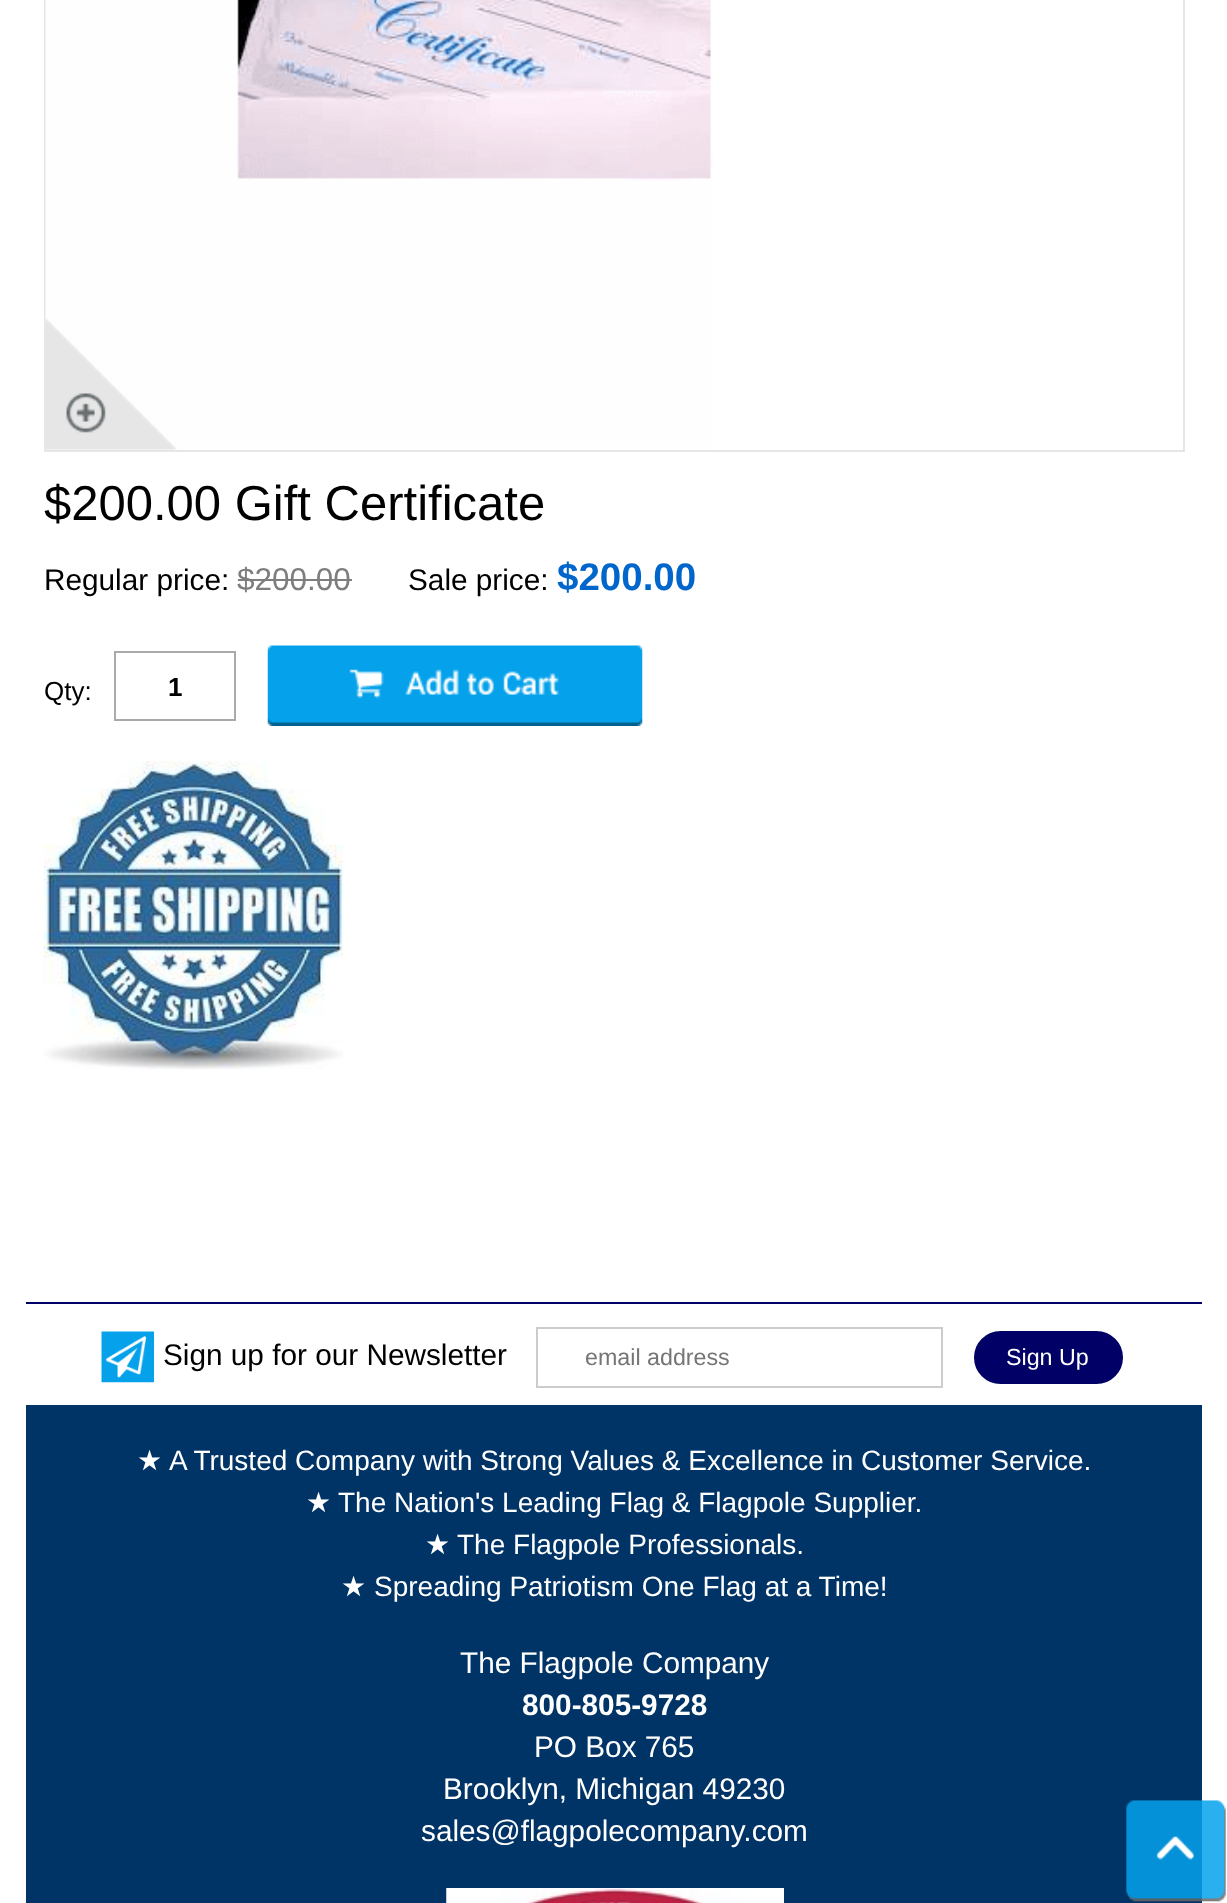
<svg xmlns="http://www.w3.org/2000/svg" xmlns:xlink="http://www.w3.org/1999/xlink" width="1227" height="1903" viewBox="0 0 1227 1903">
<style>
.cls-1{font:49px Liberation Sans;fill:#000000}
.cls-2{font:29.75px Liberation Sans;fill:#000000}
.cls-3{font:31.5px Liberation Sans;fill:#7e7e7e}
.cls-4{font:bold 38.5px Liberation Sans;fill:#0066cc}
.cls-5{font:26px Liberation Sans;fill:#000000}
.cls-6{font:bold 26px Liberation Sans;fill:#000000}
.cls-7{font:23.25px Liberation Sans;fill:#757575}
.cls-8{font:23.25px Liberation Sans;fill:#ffffff}
.cls-9{font:28px DejaVu Sans;fill:#ffffff}
.cls-10{font:28px Liberation Sans;fill:#ffffff}
.cls-11{font:29.75px Liberation Sans;fill:#ffffff}
.cls-12{font:bold 29.75px Liberation Sans;fill:#ffffff}
</style>
<rect width="100%" height="100%" fill="#ffffff"/>
<rect fill="none" stroke="#e6e6e6" stroke-width="2" x="45" y="-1" width="1139" height="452"/>
<image xlink:href="image0.png" x="45" y="0" width="668" height="450"/>
<image xlink:href="image1.png" x="45" y="318" width="132" height="132"/>
<rect fill="#7e7e7e" x="238" y="579" width="114" height="2"/>
<rect fill="none" stroke="#aaaaaa" stroke-width="2" x="115" y="652" width="120" height="68"/>
<image xlink:href="image2.png" x="267" y="645" width="376" height="81"/>
<image xlink:href="image3.png" x="43" y="761" width="300" height="309"/>
<rect fill="#003366" x="26" y="1405" width="1176" height="498"/>
<rect fill="#000066" x="26" y="1302" width="1176" height="2"/>
<image xlink:href="image4.png" x="101" y="1331" width="53" height="52"/>
<rect fill="none" stroke="#cccccc" stroke-width="2" x="537" y="1328" width="405" height="59"/>
<rect fill="#000066" stroke="#ffffff" stroke-width="4" x="972" y="1329" width="153" height="57" rx="28.5"/>
<image xlink:href="image5.png" x="446" y="1888" width="338" height="15"/>
<image xlink:href="image6.png" x="1126" y="1800" width="100" height="102"/>
<text class="cls-1" x="44" y="520">$200.00 Gift Certificate</text>
<text class="cls-2" x="44" y="590">Regular price:</text>
<text class="cls-3" x="237" y="590">$200.00</text>
<text class="cls-2" x="408" y="590">Sale price:</text>
<text class="cls-4" x="557" y="590">$200.00</text>
<text class="cls-5" x="44" y="700">Qty:</text>
<text class="cls-6" x="168" y="696">1</text>
<text class="cls-2" x="163" y="1365">Sign up for our Newsletter</text>
<text class="cls-7" x="585" y="1365">email address</text>
<text class="cls-8" x="1006" y="1365">Sign Up</text>
<text class="cls-9" x="137" y="1470">★</text>
<text class="cls-10" x="169" y="1470">A Trusted Company with Strong Values &amp; Excellence in Customer Service.</text>
<text class="cls-9" x="306" y="1512">★</text>
<text class="cls-10" x="338" y="1512">The Nation's Leading Flag &amp; Flagpole Supplier.</text>
<text class="cls-9" x="425" y="1554">★</text>
<text class="cls-10" x="457" y="1554">The Flagpole Professionals.</text>
<text class="cls-9" x="341" y="1596">★</text>
<text class="cls-10" x="374" y="1596">Spreading Patriotism One Flag at a Time!</text>
<text class="cls-11" x="460" y="1673">The Flagpole Company</text>
<text class="cls-12" x="522" y="1715">800-805-9728</text>
<text class="cls-11" x="534" y="1757">PO Box 765</text>
<text class="cls-11" x="443" y="1799">Brooklyn, Michigan 49230</text>
<text class="cls-11" x="421" y="1841">sales@flagpolecompany.com</text>
</svg>
